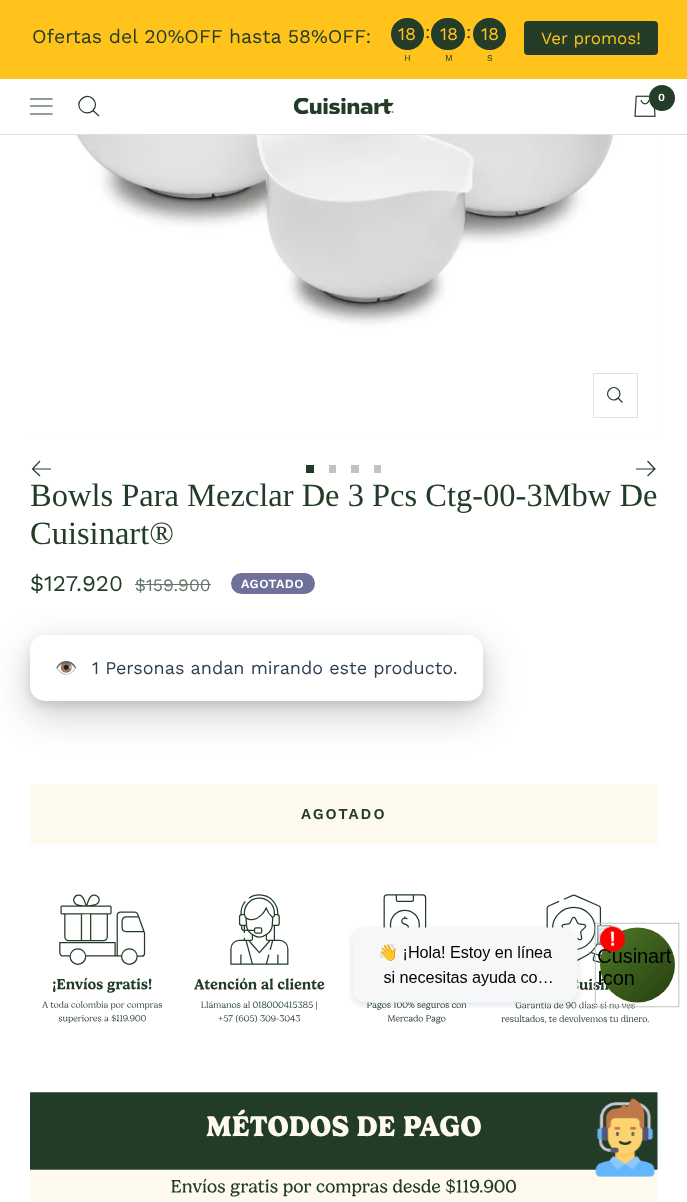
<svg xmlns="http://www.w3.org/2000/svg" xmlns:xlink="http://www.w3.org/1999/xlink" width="687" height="1202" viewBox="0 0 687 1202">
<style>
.cls-1{font:19.5px Work Sans;fill:#233c28}
.cls-2{font:18px Work Sans;fill:#ffc31b}
.cls-3{font:19.5px Liberation Serif;fill:#233c28}
.cls-4{font:9px Work Sans;fill:#233c28}
.cls-5{font:17px Work Sans;fill:#ffc31b}
.cls-6{font:600 11px Work Sans;fill:#ffffff}
.cls-7{font:32.5px Liberation Serif;fill:#233c28}
.cls-8{font:22.5px Work Sans;fill:#233c28}
.cls-9{font:17.5px Work Sans;fill:#657769}
.cls-10{font:600 12.5px Work Sans;letter-spacing:0.5px;fill:#ffffff}
.cls-11{font:18px Noto Color Emoji;fill:#2c3e50}
.cls-12{font:18px Work Sans;fill:#2c3e50}
.cls-13{font:600 15px Work Sans;letter-spacing:2px;fill:#233c28}
</style>
<rect width="100%" height="100%" fill="#ffffff"/>
<path fill="#dee2df" d="M0 134V135H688V1V134Z"/>
<rect fill="#ffc31b" x="0" y="0" width="687" height="79"/>
<rect fill="#243c28" x="391" y="18" width="33" height="32" rx="16"/>
<rect fill="#243c28" x="431" y="18" width="34" height="32" rx="16"/>
<rect fill="#243c28" x="473" y="18" width="33" height="32" rx="16"/>
<rect fill="#243c28" x="524" y="21" width="134" height="34" rx="4"/>
<path fill="none" stroke="#243c28" stroke-width="1.2" d="M30 99H52.5M30 114H52.5ZM30 106H52.5Z"/>
<path fill="none" stroke="#243c28" stroke-width="1.2" d="M93 110.5C100.5 102.5 89 91 81.5 99C73.5 106.5 85 118 93 110.5ZM93 110.5L99 116"/>
<image xlink:href="image0.png" x="294" y="98" width="100" height="16"/>
<image xlink:href="image1.png" x="634" y="95" width="22" height="22"/>
<circle fill="#243c28" cx="662" cy="98" r="13"/>
<rect fill="#fffaee" x="30" y="135" width="628" height="303"/>
<image xlink:href="image2.png" x="30" y="135" width="628" height="302"/>
<rect fill="none" stroke="#dee2df" x="593.5" y="373.5" width="44" height="44"/>
<path fill="none" stroke="#233c28" stroke-width="1.2" d="M618 398C624 392.5 615 383.5 609.5 389.5C603.5 395 612.5 404 618 398ZM618 398L622.5 402.5"/>
<path fill="none" stroke="#233c28" stroke-width="1.2" d="M51 469H32.5M40 461L32.5 469L40 476"/>
<rect fill="#233c28" x="306" y="465" width="8" height="8"/>
<rect fill="#bdc5bf" x="329" y="465" width="7" height="8"/>
<rect fill="#bdc5bf" x="351" y="465" width="8" height="8"/>
<rect fill="#bdc5bf" x="374" y="465" width="7" height="8"/>
<path fill="none" stroke="#233c28" stroke-width="1.2" d="M636 469H655M647.5 461L655 469L647.5 476"/>
<rect fill="#657769" x="135" y="584" width="76" height="1"/>
<rect fill="#6f719b" x="231" y="573" width="84" height="21" rx="10.5"/>
<rect fill="#000000" fill-opacity="0.1" filter="blur(5px)" x="30" y="640" width="453" height="66" rx="15"/>
<rect fill="#000000" fill-opacity="0.2" filter="blur(19px)" x="30" y="648" width="453" height="66" rx="15"/>
<rect fill="#ffffff" x="30" y="635" width="453" height="66" rx="15"/>
<rect fill="#fffaee" x="30" y="784" width="628" height="60"/>
<image xlink:href="image3.png" x="42" y="894" width="607" height="130"/>
<image xlink:href="image4.png" x="30" y="1092" width="628" height="110"/>
<image xlink:href="image5.png" x="349" y="922" width="331" height="86"/>
<image xlink:href="image6.png" x="595" y="1098" width="61" height="79"/>
<text class="cls-1" x="32" y="43">Ofertas del 20%OFF hasta 58%OFF:</text>
<text class="cls-2" x="398" y="40">18</text>
<text class="cls-3" x="425" y="38">:</text>
<text class="cls-2" x="440" y="40">18</text>
<text class="cls-3" x="466" y="38">:</text>
<text class="cls-2" x="481" y="40">18</text>
<text class="cls-4" x="404" y="61">H</text>
<text class="cls-4" x="445" y="61">M</text>
<text class="cls-4" x="487" y="61">S</text>
<text class="cls-5" x="541" y="44">Ver promos!</text>
<text class="cls-6" x="658" y="101">0</text>
<text class="cls-7"><tspan x="30" y="506">Bowls Para Mezclar De 3 Pcs Ctg-00-3Mbw De</tspan><tspan x="30" y="544">Cuisinart®</tspan></text>
<text class="cls-8" x="30" y="591">$127.920</text>
<text class="cls-9" x="135" y="591">$159.900</text>
<text class="cls-10" x="241" y="588">AGOTADO</text>
<text class="cls-11" x="55" y="674">👁️</text>
<text class="cls-12" x="92" y="674">1 Personas andan mirando este producto.</text>
<text class="cls-13" x="301" y="819">AGOTADO</text>
</svg>
